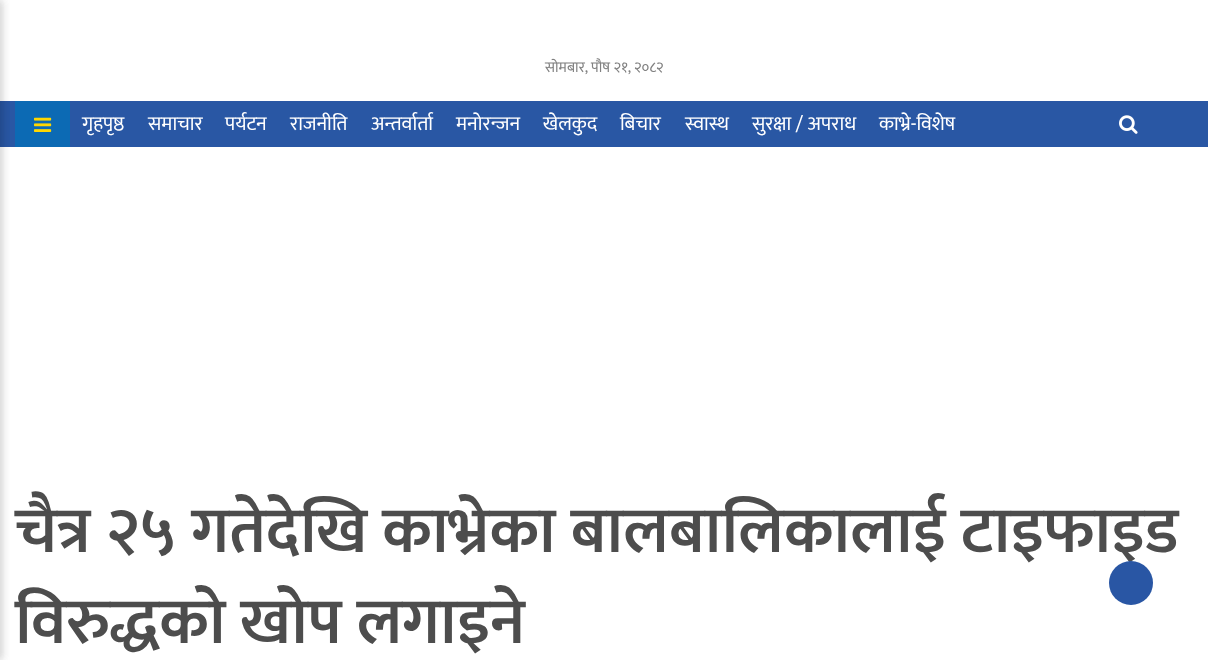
<svg xmlns="http://www.w3.org/2000/svg" xmlns:xlink="http://www.w3.org/1999/xlink" width="1208" height="660" viewBox="0 0 1208 660">
<style>
.cls-1{font:15px Ek Mukta;fill:#808080}
.cls-2{font:20px Ek Mukta;fill:#ffffff}
.cls-3{font:600 65px Ek Mukta;fill:#4d4d4d}
</style>
<rect width="100%" height="100%" fill="#ffffff"/>
<rect fill="#2957a4" x="0" y="101" width="1208" height="46"/>
<rect fill="#000000" fill-opacity="0.1" filter="blur(4px)" x="-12" y="0" width="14" height="660"/>
<rect fill="#000000" fill-opacity="0.1" filter="blur(4px)" x="-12" y="0" width="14" height="660"/>
<rect fill="#0c6ab4" x="15" y="101" width="55" height="46"/>
<image xlink:href="image0.png" x="34" y="117" width="18" height="15"/>
<image xlink:href="image1.png" x="1119" y="115" width="19" height="19"/>
<text class="cls-1" x="545" y="72">सोमबार,</text>
<text class="cls-1" x="591" y="72">पौष २१,</text>
<text class="cls-1" x="634" y="72">२०८२</text>
<text class="cls-2" x="82" y="130">गृहपृष्ठ</text>
<text class="cls-2" x="148" y="130">समाचार</text>
<text class="cls-2" x="225" y="130">पर्यटन</text>
<text class="cls-2" x="290" y="130">राजनीति</text>
<text class="cls-2" x="371" y="130">अन्तर्वार्ता</text>
<text class="cls-2" x="456" y="130">मनोरन्जन</text>
<text class="cls-2" x="543" y="130">खेलकुद</text>
<text class="cls-2" x="620" y="130">बिचार</text>
<text class="cls-2" x="685" y="130">स्वास्थ</text>
<text class="cls-2" x="752" y="130">सुरक्षा / अपराध</text>
<text class="cls-2" x="879" y="130">काभ्रे-विशेष</text>
<text class="cls-3"><tspan x="15" y="552">चैत्र २५ गतेदेखि काभ्रेका बालबालिकालाई टाइफाइड</tspan><tspan x="15" y="643">विरुद्धको खोप लगाइने</tspan></text>
<circle fill="#2956a4" cx="1131" cy="583" r="22"/>
</svg>
